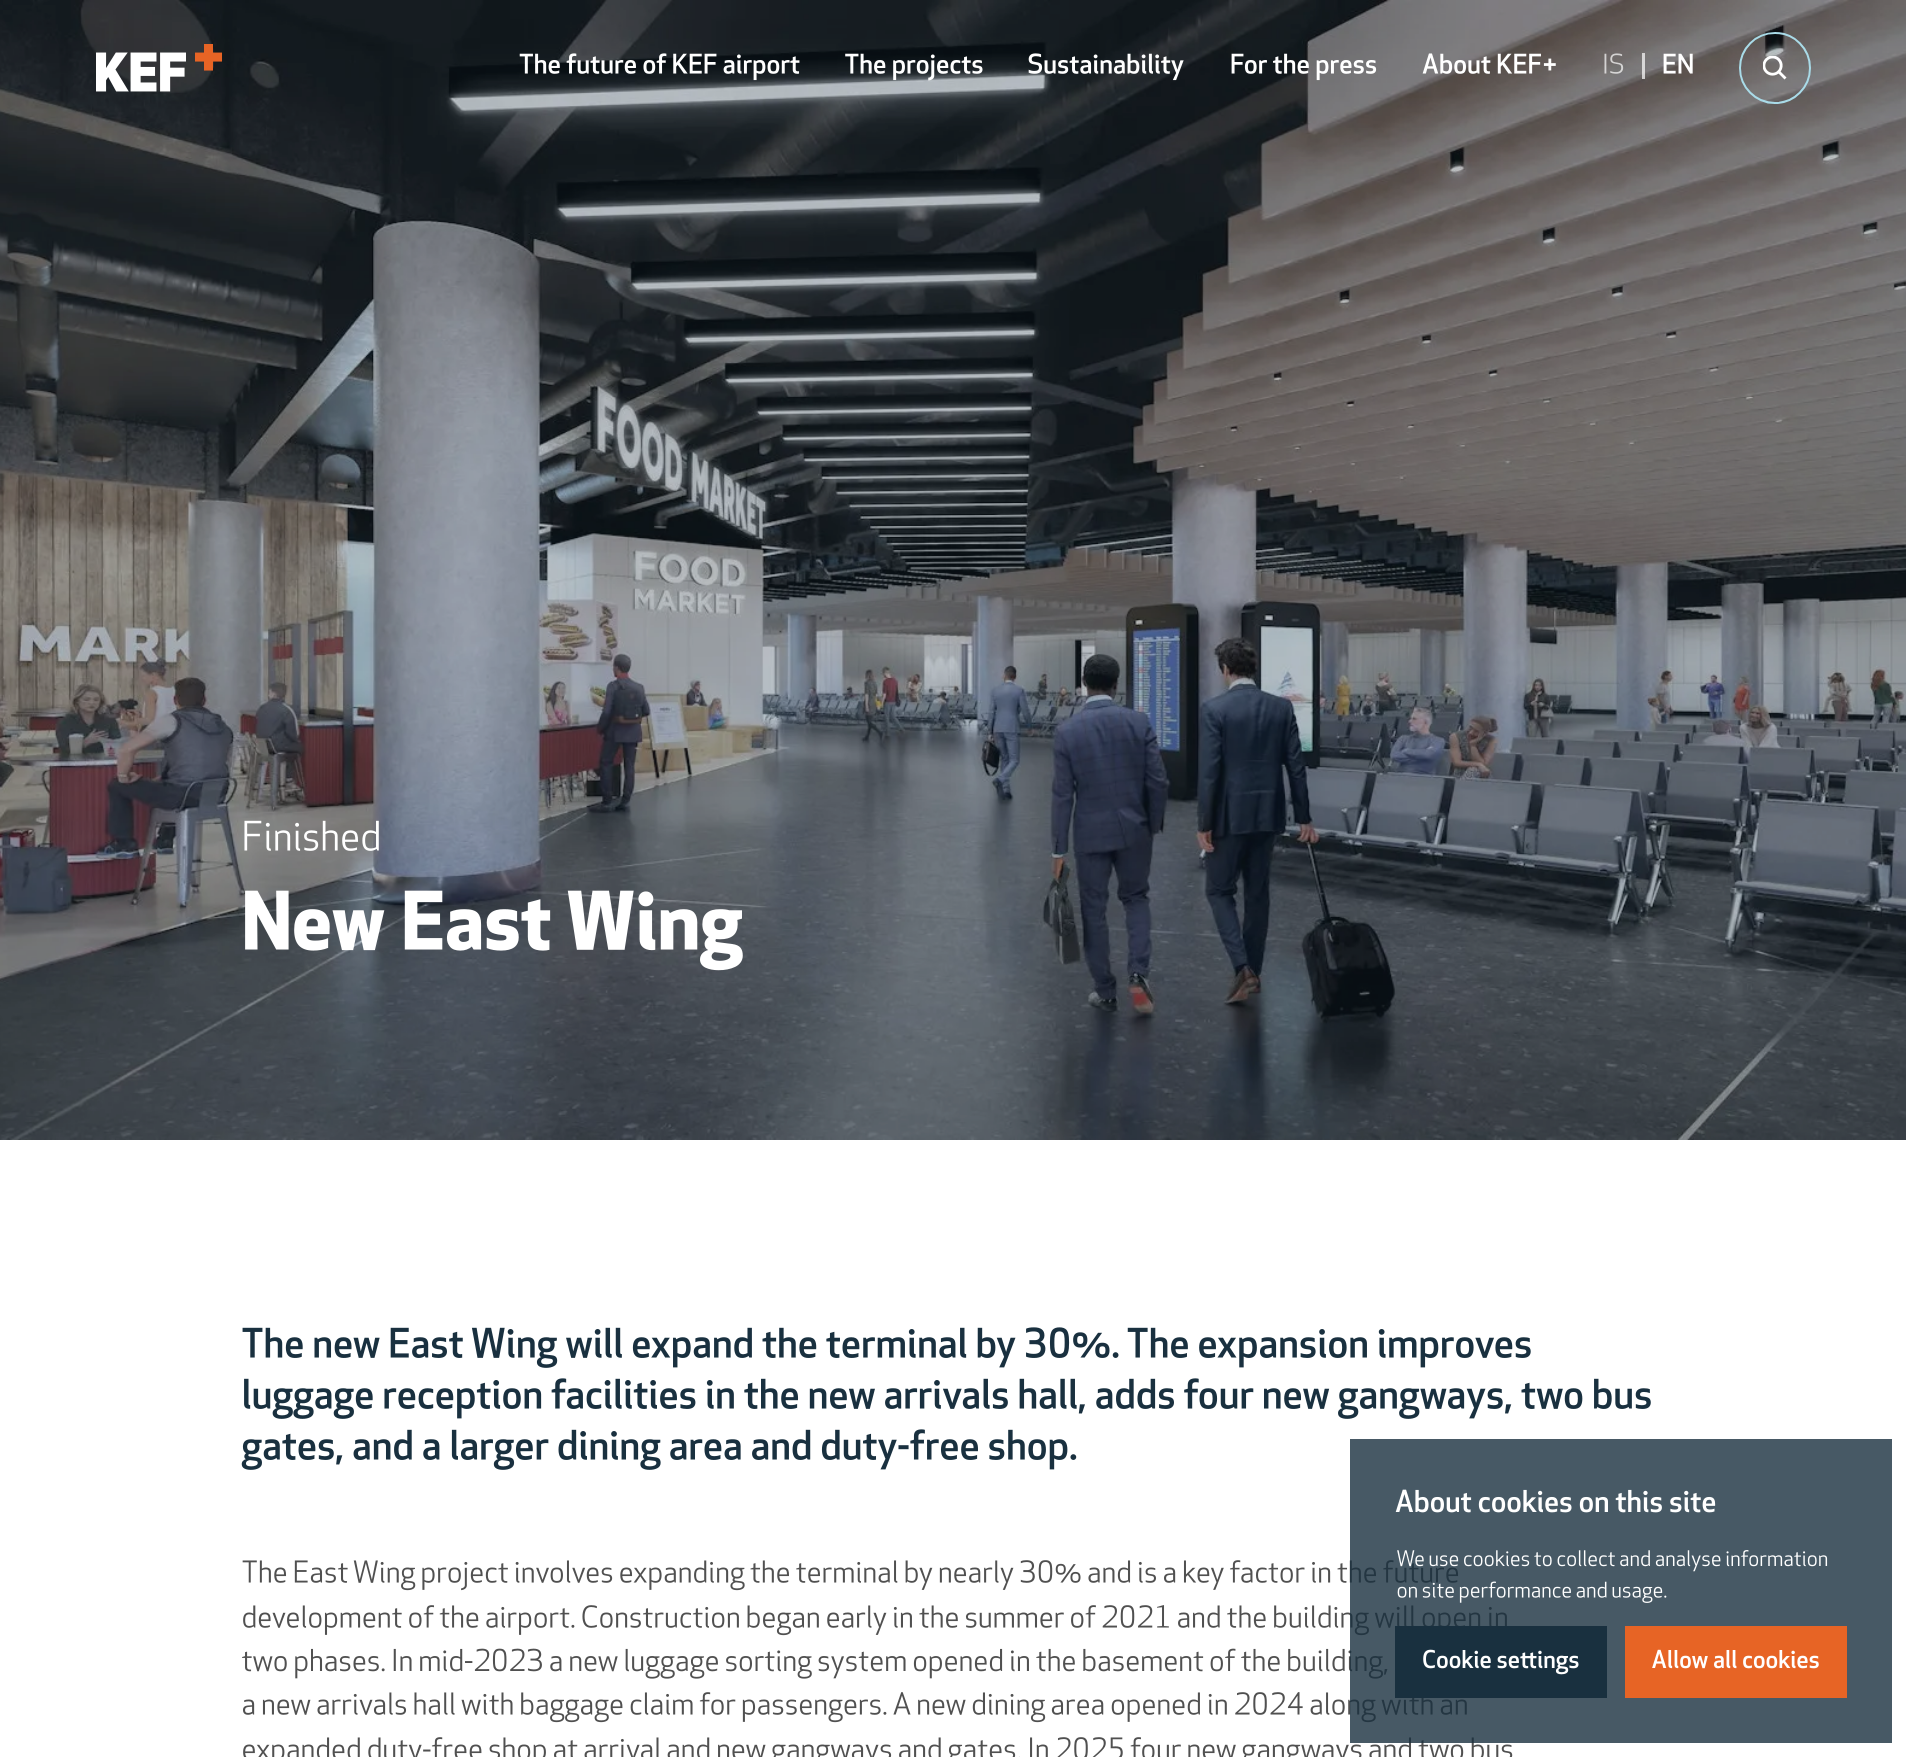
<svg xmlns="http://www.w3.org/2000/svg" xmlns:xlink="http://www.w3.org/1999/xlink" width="1906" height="1757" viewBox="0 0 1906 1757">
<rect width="100%" height="100%" fill="#ffffff"/>
<image xlink:href="image0.png" x="0" y="0" width="1906" height="1140"/>
<image xlink:href="image1.png" x="244" y="820" width="135" height="31"/>
<image xlink:href="image2.png" x="245" y="890" width="498" height="81"/>
<image xlink:href="image3.png" x="242" y="1327" width="1289" height="41"/>
<image xlink:href="image4.png" x="244" y="1378" width="1407" height="41"/>
<image xlink:href="image5.png" x="241" y="1429" width="836" height="41"/>
<image xlink:href="image6.png" x="242" y="1560" width="1217" height="31"/>
<image xlink:href="image7.png" x="243" y="1605" width="1264" height="31"/>
<image xlink:href="image8.png" x="242" y="1648" width="1146" height="31"/>
<image xlink:href="image9.png" x="243" y="1692" width="1224" height="31"/>
<image xlink:href="image10.png" x="243" y="1737" width="1270" height="20"/>
<image xlink:href="image11.png" x="96" y="44" width="126" height="48"/>
<image xlink:href="image12.png" x="519" y="53" width="281" height="28"/>
<image xlink:href="image13.png" x="845" y="53" width="138" height="28"/>
<image xlink:href="image14.png" x="1028" y="53" width="156" height="28"/>
<image xlink:href="image15.png" x="1231" y="53" width="146" height="28"/>
<image xlink:href="image16.png" x="1422" y="53" width="134" height="21"/>
<image xlink:href="image17.png" x="1604" y="53" width="20" height="21"/>
<rect fill="#ffffff" fill-opacity="0.7" x="1642" y="53" width="3" height="26"/>
<image xlink:href="image18.png" x="1663" y="53" width="30" height="21"/>
<circle fill="none" stroke="#a9dbe8" stroke-width="2" cx="1775" cy="68" r="35"/>
<image xlink:href="image19.png" x="1763" y="56" width="24" height="24"/>
<rect fill="#19303f" fill-opacity="0.8" x="1350" y="1439" width="542" height="304"/>
<image xlink:href="image20.png" x="1395" y="1489" width="321" height="24"/>
<image xlink:href="image21.png" x="1397" y="1550" width="431" height="22"/>
<image xlink:href="image22.png" x="1397" y="1581" width="270" height="22"/>
<rect fill="#19303f" x="1395" y="1626" width="212" height="72"/>
<image xlink:href="image23.png" x="1423" y="1649" width="156" height="26"/>
<rect fill="#e76425" x="1625" y="1626" width="222" height="72"/>
<image xlink:href="image24.png" x="1652" y="1649" width="167" height="20"/>
</svg>
